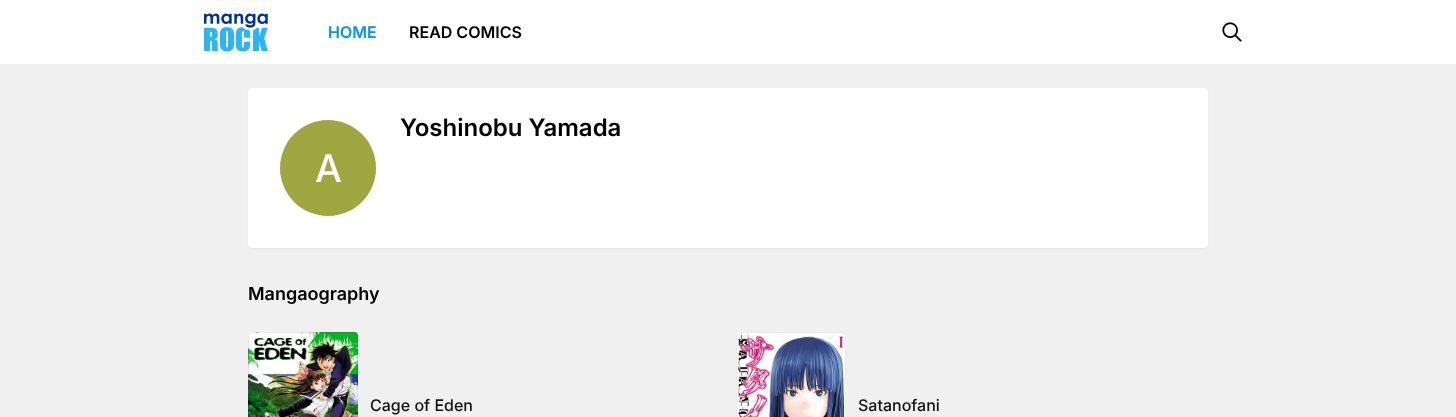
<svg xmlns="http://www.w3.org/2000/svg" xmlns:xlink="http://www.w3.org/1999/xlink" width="1456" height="417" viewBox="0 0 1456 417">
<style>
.cls-1{font:600 16px Inter;fill:#0095e9}
.cls-2{font:600 16px Inter;fill:#000000}
.cls-3{font:600 24px Inter;fill:#000000}
.cls-4{font:500 38px Inter;fill:#ffffff}
.cls-5{font:600 18px Inter;fill:#000000}
.cls-6{font:500 16px Inter;fill:#131313}
</style>
<rect width="100%" height="100%" fill="#ffffff"/>
<image xlink:href="image0.png" x="204" y="13" width="64" height="39"/>
<image xlink:href="image1.png" x="1222" y="22" width="20" height="20"/>
<rect fill="#f0f0f0" x="0" y="64" width="1456" height="353"/>
<rect fill="#000000" fill-opacity="0.05" filter="blur(1px)" x="248" y="89" width="960" height="160" rx="4"/>
<rect fill="#ffffff" x="248" y="88" width="960" height="160" rx="4"/>
<circle fill="#9ea63f" cx="328" cy="168" r="48"/>
<image xlink:href="image2.png" x="248" y="332" width="110" height="85"/>
<rect fill="none" stroke="#000000" stroke-opacity="0.08" x="248.5" y="332.5" width="109" height="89" rx="3.5"/>
<image xlink:href="image3.png" x="736" y="332" width="110" height="85"/>
<rect fill="none" stroke="#000000" stroke-opacity="0.08" x="736.5" y="332.5" width="109" height="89" rx="3.5"/>
<text class="cls-1" x="328" y="38">HOME</text>
<text class="cls-2" x="409" y="38">READ COMICS</text>
<text class="cls-3" x="400" y="136">Yoshinobu Yamada</text>
<text class="cls-4" x="315" y="182">A</text>
<text class="cls-5" x="248" y="300">Mangaography</text>
<text class="cls-6" x="370" y="411">Cage of Eden</text>
<text class="cls-6" x="858" y="411">Satanofani</text>
</svg>
